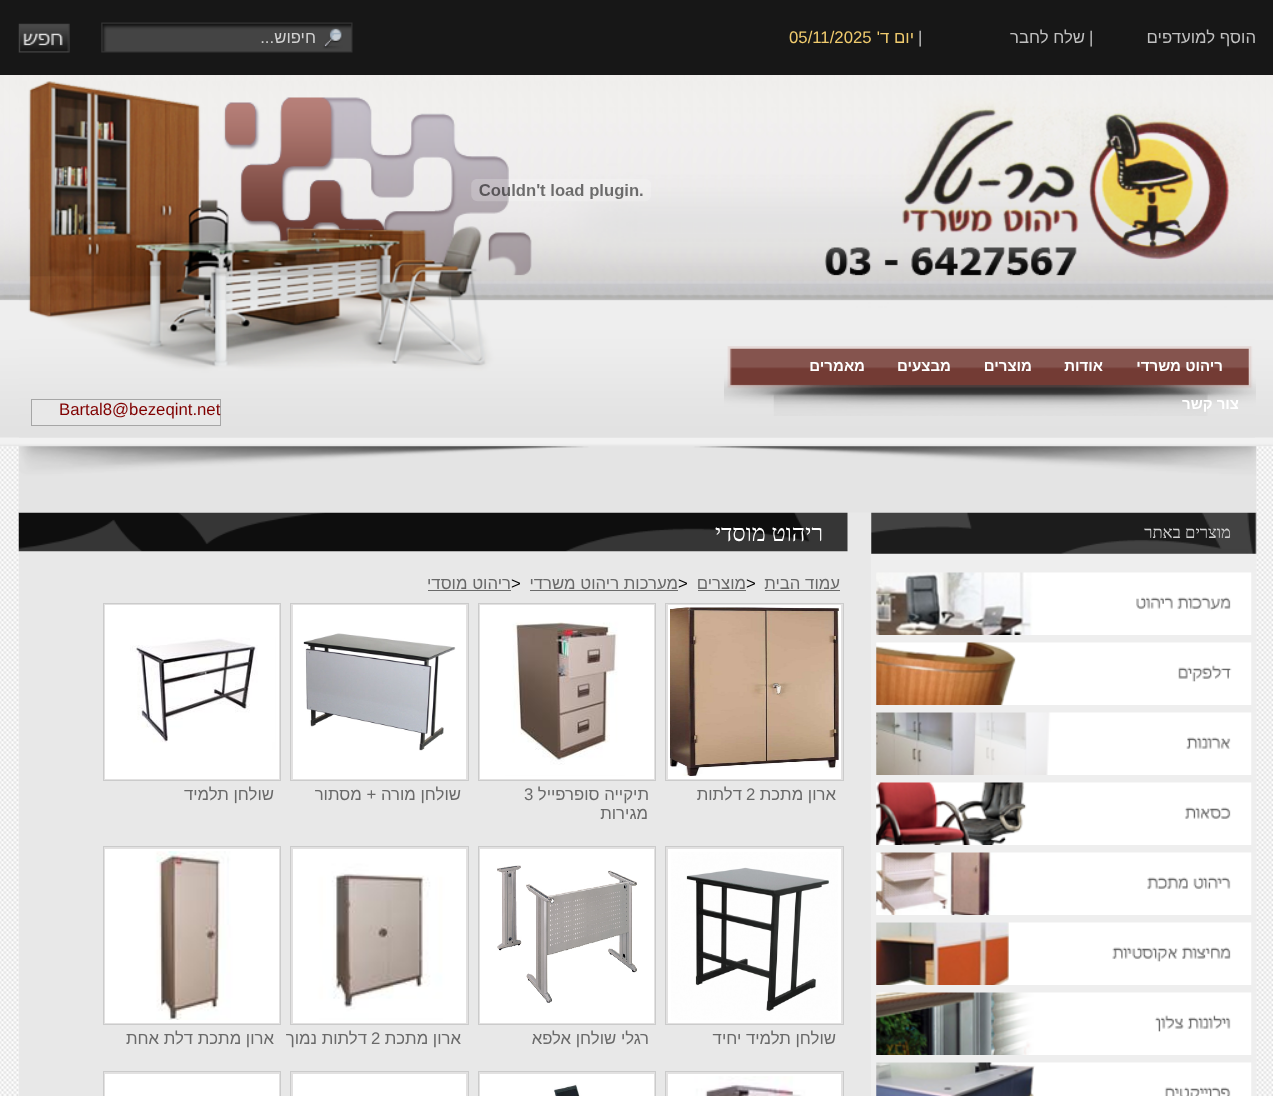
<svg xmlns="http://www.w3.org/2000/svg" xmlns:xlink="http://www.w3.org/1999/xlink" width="1273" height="1096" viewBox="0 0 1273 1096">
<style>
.cls-1{font:16.75px Liberation Sans;direction:rtl;fill:#c0c0c0}
.cls-2{font:16.75px Liberation Sans;fill:#c0c0c0}
.cls-3{font:16.75px Liberation Sans;direction:rtl;fill:#f0cb6e}
.cls-4{font:16.75px Liberation Sans;fill:#f0cb6e}
.cls-5{font:16.75px Liberation Sans;direction:rtl;fill:#d1d1d1}
.cls-6{font:bold 15px Liberation Sans;direction:rtl;fill:#ffffff}
.cls-7{font:16.75px Liberation Sans;fill:#800000}
.cls-8{font:16.75px Liberation Serif;direction:rtl;fill:#d1d1d1}
.cls-9{font:23.5px Liberation Serif;direction:rtl;fill:#ffffff}
.cls-10{font:16.75px Liberation Sans;direction:rtl;fill:#696969}
.cls-11{font:16.75px Liberation Sans;fill:#000000}
.cls-12{font:16.75px Liberation Sans;fill:#696969}
</style>
<rect width="100%" height="100%" fill="#ffffff"/>
<image xlink:href="image0.png" x="0" y="446" width="1273" height="650"/>
<rect fill="#171717" x="0" y="0" width="1273" height="75"/>
<image xlink:href="image1.png" x="101" y="22" width="252" height="31"/>
<image xlink:href="image2.png" x="18" y="23" width="52" height="30"/>
<image xlink:href="image3.png" x="0" y="75" width="1273" height="371"/>
<image xlink:href="image4.png" x="19" y="81" width="1236" height="357"/>
<image xlink:href="image5.png" x="724" y="346" width="532" height="70"/>
<image xlink:href="image6.png" x="471" y="179" width="180" height="23"/>
<rect fill="#e8e8e8" stroke="#a6a6a6" x="31.5" y="399.5" width="189" height="26"/>
<rect fill="#e8e8e8" x="19" y="446" width="1237" height="650"/>
<image xlink:href="image8.png" x="871" y="512" width="386" height="42"/>
<image xlink:href="image17.png" x="18" y="512" width="830" height="40"/>
<image xlink:href="image7.png" x="18" y="446" width="1239" height="67"/>
<rect fill="#eeeeee" x="871" y="554" width="385" height="542"/>
<image xlink:href="image9.png" x="876" y="572" width="376" height="63"/>
<image xlink:href="image10.png" x="876" y="642" width="376" height="63"/>
<image xlink:href="image11.png" x="876" y="712" width="376" height="63"/>
<image xlink:href="image12.png" x="876" y="782" width="376" height="63"/>
<image xlink:href="image13.png" x="876" y="852" width="376" height="63"/>
<image xlink:href="image14.png" x="876" y="922" width="376" height="63"/>
<image xlink:href="image15.png" x="876" y="992" width="376" height="63"/>
<image xlink:href="image16.png" x="876" y="1062" width="376" height="34"/>
<rect fill="#696969" x="765" y="590" width="75" height="1"/>
<rect fill="#696969" x="698" y="590" width="48" height="1"/>
<rect fill="#696969" x="530" y="590" width="148" height="1"/>
<rect fill="#696969" x="428" y="590" width="83" height="1"/>
<rect fill="#e2e1e1" stroke="#cbcbcb" x="665.5" y="603.5" width="178" height="177"/>
<rect fill="none" stroke="#ffffff" stroke-width="3" x="669.5" y="606.5" width="170" height="171"/>
<image xlink:href="image18.png" x="670" y="607" width="169" height="170"/>
<rect fill="#e2e1e1" stroke="#cbcbcb" x="478.5" y="603.5" width="177" height="177"/>
<rect fill="none" stroke="#ffffff" stroke-width="3" x="481.5" y="606.5" width="171" height="171"/>
<image xlink:href="image19.png" x="483" y="608" width="168" height="168"/>
<rect fill="#e2e1e1" stroke="#cbcbcb" x="290.5" y="603.5" width="178" height="177"/>
<rect fill="none" stroke="#ffffff" stroke-width="3" x="294.5" y="606.5" width="170" height="171"/>
<image xlink:href="image20.png" x="296" y="608" width="167" height="168"/>
<rect fill="#e2e1e1" stroke="#cbcbcb" x="103.5" y="603.5" width="177" height="177"/>
<rect fill="none" stroke="#ffffff" stroke-width="3" x="106.5" y="606.5" width="171" height="171"/>
<image xlink:href="image21.png" x="108" y="608" width="168" height="168"/>
<rect fill="#e2e1e1" stroke="#cbcbcb" x="665.5" y="846.5" width="178" height="178"/>
<rect fill="none" stroke="#ffffff" stroke-width="3" x="669.5" y="850.5" width="170" height="171"/>
<image xlink:href="image22.png" x="671" y="852" width="167" height="168"/>
<rect fill="#e2e1e1" stroke="#cbcbcb" x="478.5" y="846.5" width="177" height="178"/>
<rect fill="none" stroke="#ffffff" stroke-width="3" x="481.5" y="850.5" width="171" height="171"/>
<image xlink:href="image23.png" x="483" y="852" width="168" height="168"/>
<rect fill="#e2e1e1" stroke="#cbcbcb" x="290.5" y="846.5" width="178" height="178"/>
<rect fill="none" stroke="#ffffff" stroke-width="3" x="294.5" y="850.5" width="170" height="171"/>
<image xlink:href="image24.png" x="296" y="852" width="167" height="168"/>
<rect fill="#e2e1e1" stroke="#cbcbcb" x="103.5" y="846.5" width="177" height="178"/>
<rect fill="none" stroke="#ffffff" stroke-width="3" x="106.5" y="850.5" width="171" height="171"/>
<image xlink:href="image25.png" x="108" y="851" width="168" height="169"/>
<rect fill="#e2e1e1" stroke="#cbcbcb" x="665.5" y="1071.5" width="178" height="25"/>
<rect fill="none" stroke="#ffffff" stroke-width="3" x="669.5" y="1075.5" width="170" height="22"/>
<image xlink:href="image26.png" x="671" y="1076" width="167" height="20"/>
<rect fill="#e2e1e1" stroke="#cbcbcb" x="478.5" y="1071.5" width="177" height="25"/>
<rect fill="none" stroke="#ffffff" stroke-width="3" x="481.5" y="1075.5" width="171" height="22"/>
<image xlink:href="image27.png" x="483" y="1077" width="168" height="19"/>
<rect fill="#e2e1e1" stroke="#cbcbcb" x="290.5" y="1071.5" width="178" height="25"/>
<rect fill="none" stroke="#ffffff" stroke-width="3" x="294.5" y="1075.5" width="170" height="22"/>
<rect fill="#ffffff" x="296" y="1077" width="167" height="19"/>
<rect fill="#e2e1e1" stroke="#cbcbcb" x="103.5" y="1071.5" width="177" height="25"/>
<rect fill="none" stroke="#ffffff" stroke-width="3" x="106.5" y="1075.5" width="171" height="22"/>
<rect fill="#ffffff" x="108" y="1077" width="168" height="19"/>
<text class="cls-1" x="1256" y="43">הוסף למועדפים</text>
<text class="cls-2" x="1089" y="43">|</text>
<text class="cls-1" x="1085" y="43">שלח לחבר</text>
<text class="cls-2" x="918" y="43">|</text>
<text class="cls-3" x="914" y="43">יום ד'</text>
<text class="cls-4" x="789" y="43">05/11/2025</text>
<text class="cls-5" x="316" y="43">חיפוש...</text>
<text class="cls-6" x="1223" y="371">ריהוט משרדי</text>
<text class="cls-6" x="1103" y="371">אודות</text>
<text class="cls-6" x="1032" y="371">מוצרים</text>
<text class="cls-6" x="951" y="371">מבצעים</text>
<text class="cls-6" x="865" y="371">מאמרים</text>
<text class="cls-6" x="1239" y="409">צור קשר</text>
<text class="cls-7" x="59" y="415">Bartal8@bezeqint.net</text>
<text class="cls-8" x="1231" y="538">מוצרים באתר</text>
<text class="cls-9" x="823" y="541">ריהוט מוסדי</text>
<text class="cls-10" x="840" y="589">עמוד הבית</text>
<text class="cls-11" x="746" y="589">&gt;</text>
<text class="cls-10" x="746" y="589">מוצרים</text>
<text class="cls-11" x="678" y="589">&gt;</text>
<text class="cls-10" x="678" y="589">מערכות ריהוט משרדי</text>
<text class="cls-11" x="511" y="589">&gt;</text>
<text class="cls-10" x="511" y="589">ריהוט מוסדי</text>
<text class="cls-10" x="836" y="800">ארון מתכת</text>
<text class="cls-12" x="746" y="800">2</text>
<text class="cls-10" x="742" y="800">דלתות</text>
<text class="cls-10" x="649" y="800">תיקייה סופרפייל</text>
<text class="cls-12" x="524" y="800">3</text>
<text class="cls-10" x="648" y="819">מגירות</text>
<text class="cls-10" x="461" y="800">שולחן מורה + מסתור</text>
<text class="cls-10" x="274" y="800">שולחן תלמיד</text>
<text class="cls-10" x="836" y="1044">שולחן תלמיד יחיד</text>
<text class="cls-10" x="649" y="1044">רגלי שולחן אלפא</text>
<text class="cls-10" x="461" y="1044">ארון מתכת</text>
<text class="cls-12" x="371" y="1044">2</text>
<text class="cls-10" x="367" y="1044">דלתות נמוך</text>
<text class="cls-10" x="274" y="1044">ארון מתכת דלת אחת</text>
</svg>
